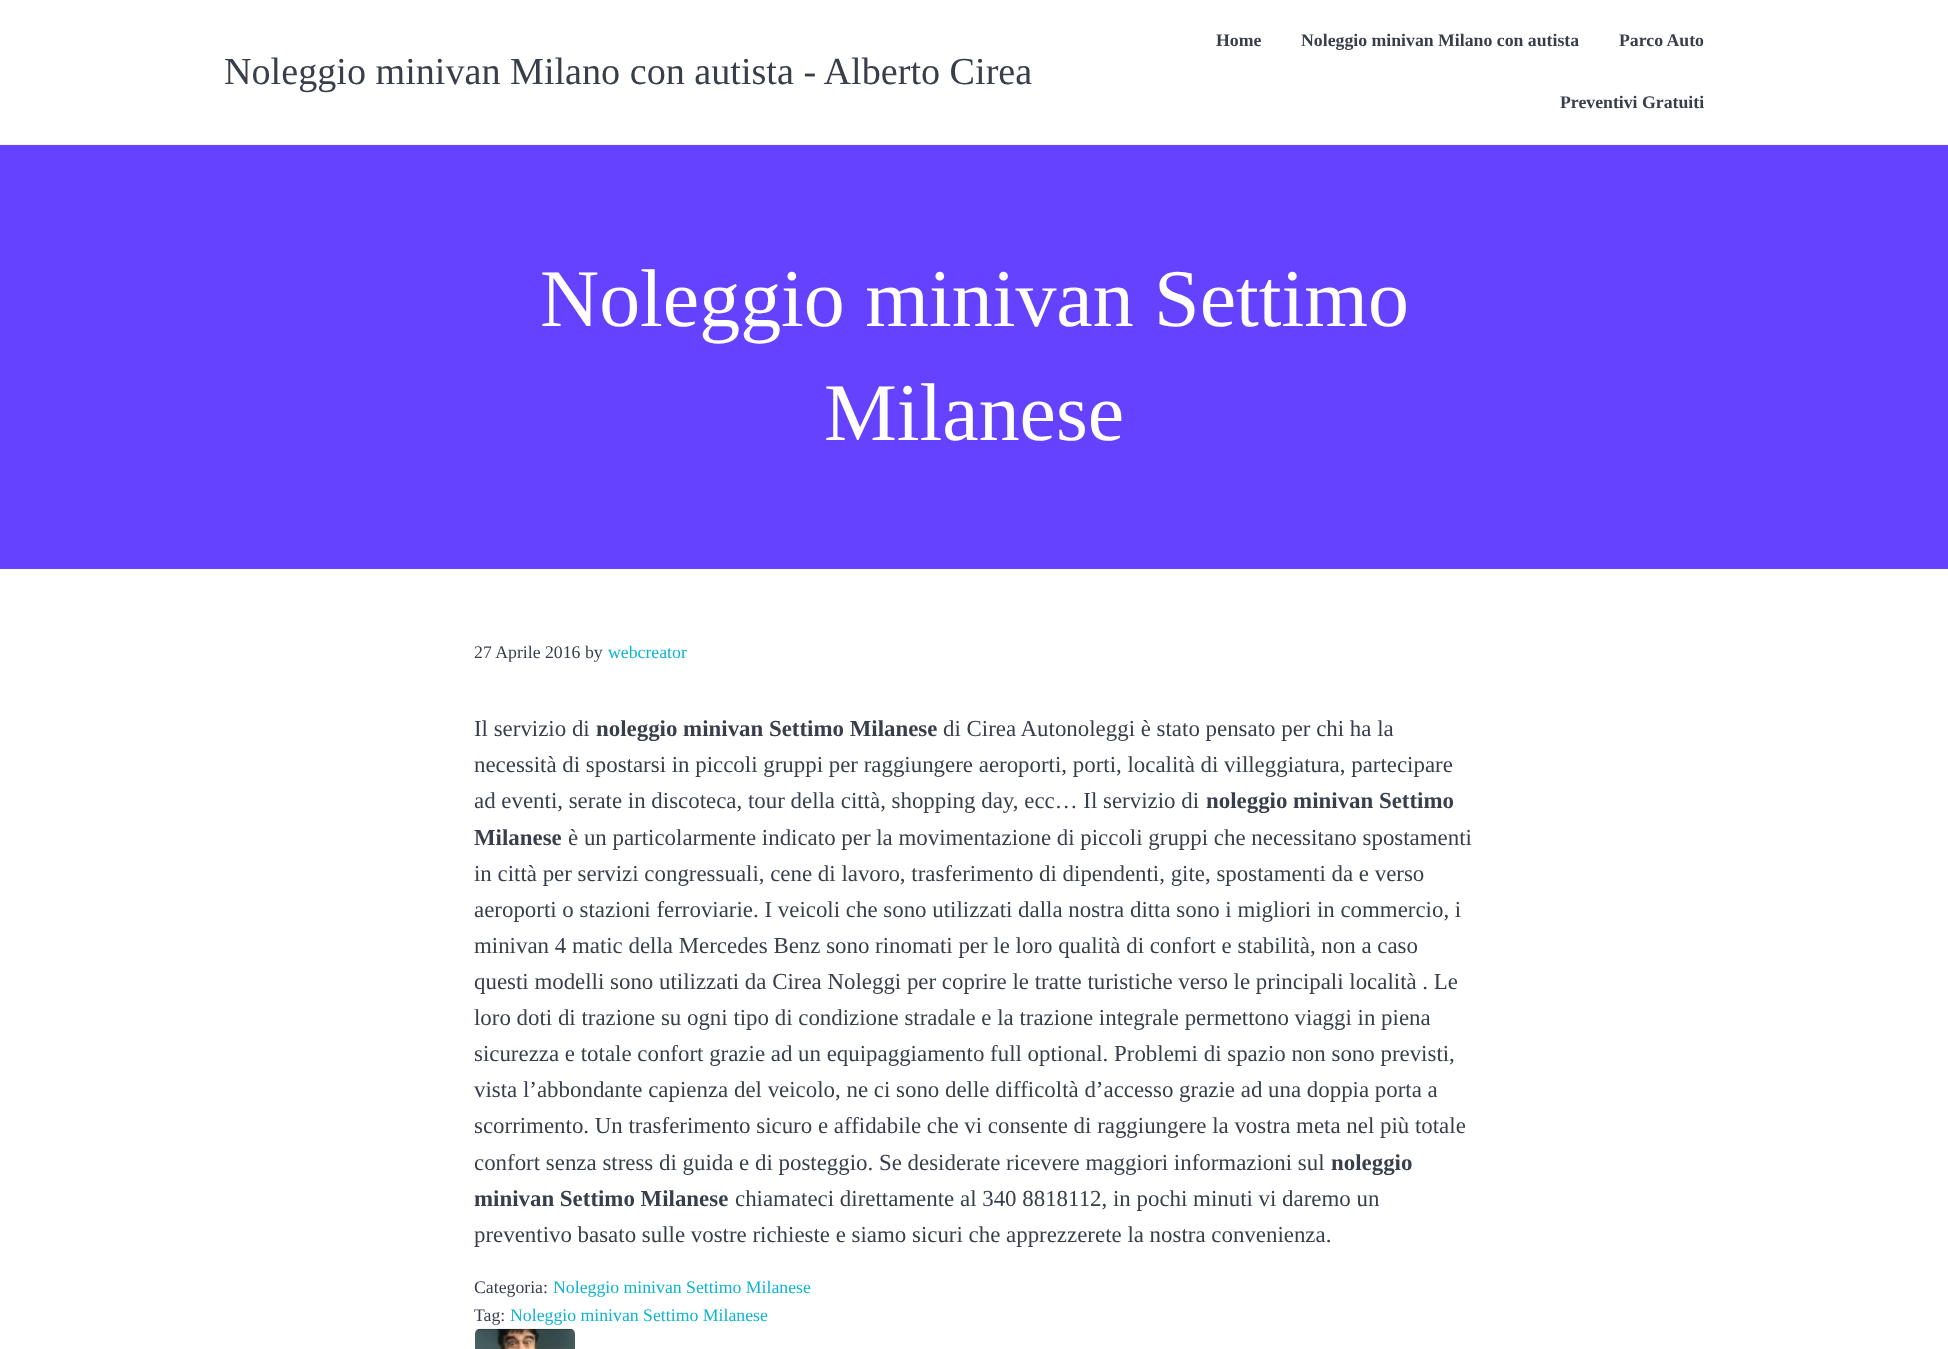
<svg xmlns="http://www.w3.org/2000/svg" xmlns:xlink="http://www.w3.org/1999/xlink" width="1948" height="1349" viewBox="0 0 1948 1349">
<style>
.cls-1{font:38.15px Liberation Serif;fill:#393e4b}
.cls-2{font:bold 17.75px Liberation Serif;fill:#393e4b}
.cls-3{font:81.9px Liberation Serif;fill:#ffffff}
.cls-4{font:17.75px Liberation Serif;fill:#393e4b}
.cls-5{font:17.75px Liberation Serif;fill:#0cb4ce}
.cls-6{font:22.9px Liberation Serif;fill:#393e4b}
.cls-7{font:bold 22.9px Liberation Serif;fill:#393e4b}
</style>
<rect width="100%" height="100%" fill="#ffffff"/>
<rect fill="#f3f3f4" x="0" y="144" width="1948" height="1"/>
<rect fill="#6442ff" x="0" y="145" width="1948" height="424"/>
<image xlink:href="image0.png" x="475" y="1328" width="100" height="21"/>
<text class="cls-1" x="224" y="84">Noleggio minivan Milano con autista - Alberto Cirea</text>
<text class="cls-2" x="1216" y="46">Home</text>
<text class="cls-2" x="1301" y="46">Noleggio minivan Milano con autista</text>
<text class="cls-2" x="1619" y="46">Parco Auto</text>
<text class="cls-2" x="1560" y="108">Preventivi Gratuiti</text>
<text class="cls-3" x="540" y="326">Noleggio minivan Settimo</text>
<text class="cls-3" x="824" y="440">Milanese</text>
<text class="cls-4" x="474" y="658">27 Aprile 2016 by</text>
<text class="cls-5" x="608" y="658">webcreator</text>
<text class="cls-6" x="474" y="736">Il servizio di</text>
<text class="cls-7" x="596" y="736">noleggio minivan Settimo Milanese</text>
<text class="cls-6" x="943" y="736">di Cirea Autonoleggi è stato pensato per chi ha la</text>
<text class="cls-6"><tspan x="474" y="772">necessità di spostarsi in piccoli gruppi per raggiungere aeroporti, porti, località di villeggiatura, partecipare</tspan><tspan x="474" y="808">ad eventi, serate in discoteca, tour della città, shopping day, ecc… Il servizio di</tspan></text>
<text class="cls-7" x="1206" y="808">noleggio minivan Settimo</text>
<text class="cls-7" x="474" y="845">Milanese</text>
<text class="cls-6" x="568" y="845">è un particolarmente indicato per la movimentazione di piccoli gruppi che necessitano spostamenti</text>
<text class="cls-6"><tspan x="474" y="881">in città per servizi congressuali, cene di lavoro, trasferimento di dipendenti, gite, spostamenti da e verso</tspan><tspan x="474" y="917">aeroporti o stazioni ferroviarie. I veicoli che sono utilizzati dalla nostra ditta sono i migliori in commercio, i</tspan><tspan x="474" y="953">minivan 4 matic della Mercedes Benz sono rinomati per le loro qualità di confort e stabilità, non a caso</tspan><tspan x="474" y="989">questi modelli sono utilizzati da Cirea Noleggi per coprire le tratte turistiche verso le principali località . Le</tspan><tspan x="474" y="1025">loro doti di trazione su ogni tipo di condizione stradale e la trazione integrale permettono viaggi in piena</tspan><tspan x="474" y="1061">sicurezza e totale confort grazie ad un equipaggiamento full optional. Problemi di spazio non sono previsti,</tspan><tspan x="474" y="1097">vista l’abbondante capienza del veicolo, ne ci sono delle difficoltà d’accesso grazie ad una doppia porta a</tspan><tspan x="474" y="1133">scorrimento. Un trasferimento sicuro e affidabile che vi consente di raggiungere la vostra meta nel più totale</tspan><tspan x="474" y="1170">confort senza stress di guida e di posteggio. Se desiderate ricevere maggiori informazioni sul</tspan></text>
<text class="cls-7" x="1331" y="1170">noleggio</text>
<text class="cls-7" x="474" y="1206">minivan Settimo Milanese</text>
<text class="cls-6" x="735" y="1206">chiamateci direttamente al 340 8818112, in pochi minuti vi daremo un</text>
<text class="cls-6" x="474" y="1242">preventivo basato sulle vostre richieste e siamo sicuri che apprezzerete la nostra convenienza.</text>
<text class="cls-4" x="474" y="1293">Categoria:</text>
<text class="cls-5" x="553" y="1293">Noleggio minivan Settimo Milanese</text>
<text class="cls-4" x="474" y="1321">Tag:</text>
<text class="cls-5" x="510" y="1321">Noleggio minivan Settimo Milanese</text>
</svg>
